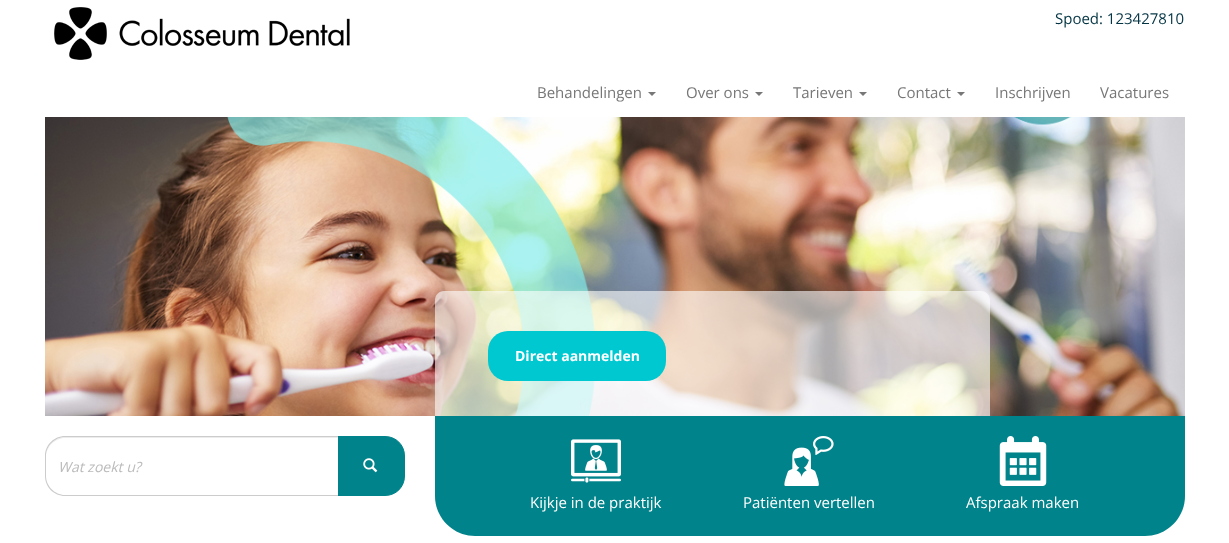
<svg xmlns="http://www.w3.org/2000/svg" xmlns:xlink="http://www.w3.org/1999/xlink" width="1229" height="543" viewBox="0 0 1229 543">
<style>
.cls-1{font:15px Open Sans;fill:#033444}
.cls-2{font:15px Open Sans;fill:#777777}
.cls-3{font:bold 14px Open Sans;fill:#ffffff}
.cls-4{font:italic 14px Open Sans;fill:#bbbbbb}
.cls-5{font:15px Open Sans;fill:#ffffff}
</style>
<rect width="100%" height="100%" fill="#ffffff"/>
<image xlink:href="image0.png" x="54" y="7" width="296" height="53"/>
<path fill="#777777" d="M648 92H656L652 96Z"/>
<path fill="#777777" d="M755 92H763L759 96Z"/>
<path fill="#777777" d="M859 92H867L863 96Z"/>
<path fill="#777777" d="M957 92H965L961 96Z"/>
<image xlink:href="image1.png" x="45" y="117" width="1140" height="299"/>
<path fill="#ffffff" fill-opacity="0.6" d="M444 291H981C986 291 990 295 990 300V416H435V300C435 295 439 291 444 291Z"/>
<rect fill="#00c8d0" x="488" y="331" width="178" height="50" rx="20"/>
<path fill="#00838a" stroke="#00838a" d="M337.5 436.5H385C396 436.5 404.5 445 404.5 456V476C404.5 487 396 495.5 385 495.5H337.5Z"/>
<path fill="#ffffff" d="M65 436H338V496H65C54 496 45 487 45 476V456C45 445 54 436 65 436Z"/>
<path fill="#ececec" d="M65 438H338V437H65C55 437 46 446 46 456V457C46 447 55 438 65 438Z"/>
<path fill="#cccccc" fill-rule="evenodd" d="M65 436H338V496H65C54 496 45 487 45 476V456C45 445 54 436 65 436ZM65 437H338V495H65C55 495 46 486 46 476V456C46 446 55 437 65 437Z"/>
<image xlink:href="image2.png" x="363" y="458" width="15" height="15"/>
<path fill="#00838a" d="M435 416H1185V496C1185 518 1167 536 1145 536H475C453 536 435 518 435 496Z"/>
<image xlink:href="image3.png" x="571" y="439" width="50" height="44"/>
<image xlink:href="image4.png" x="784" y="436" width="50" height="50"/>
<image xlink:href="image5.png" x="999" y="436" width="48" height="50"/>
<text class="cls-1" x="1055" y="24">Spoed: 123427810</text>
<text class="cls-2" x="537" y="98">Behandelingen</text>
<text class="cls-2" x="686" y="98">Over ons</text>
<text class="cls-2" x="793" y="98">Tarieven</text>
<text class="cls-2" x="897" y="98">Contact</text>
<text class="cls-2" x="995" y="98">Inschrijven</text>
<text class="cls-2" x="1100" y="98">Vacatures</text>
<text class="cls-3" x="515" y="361">Direct aanmelden</text>
<text class="cls-4" x="58" y="472">Wat zoekt u?</text>
<text class="cls-5" x="530" y="508">Kijkje in de praktijk</text>
<text class="cls-5" x="743" y="508">Patiënten vertellen</text>
<text class="cls-5" x="966" y="508">Afspraak maken</text>
</svg>
